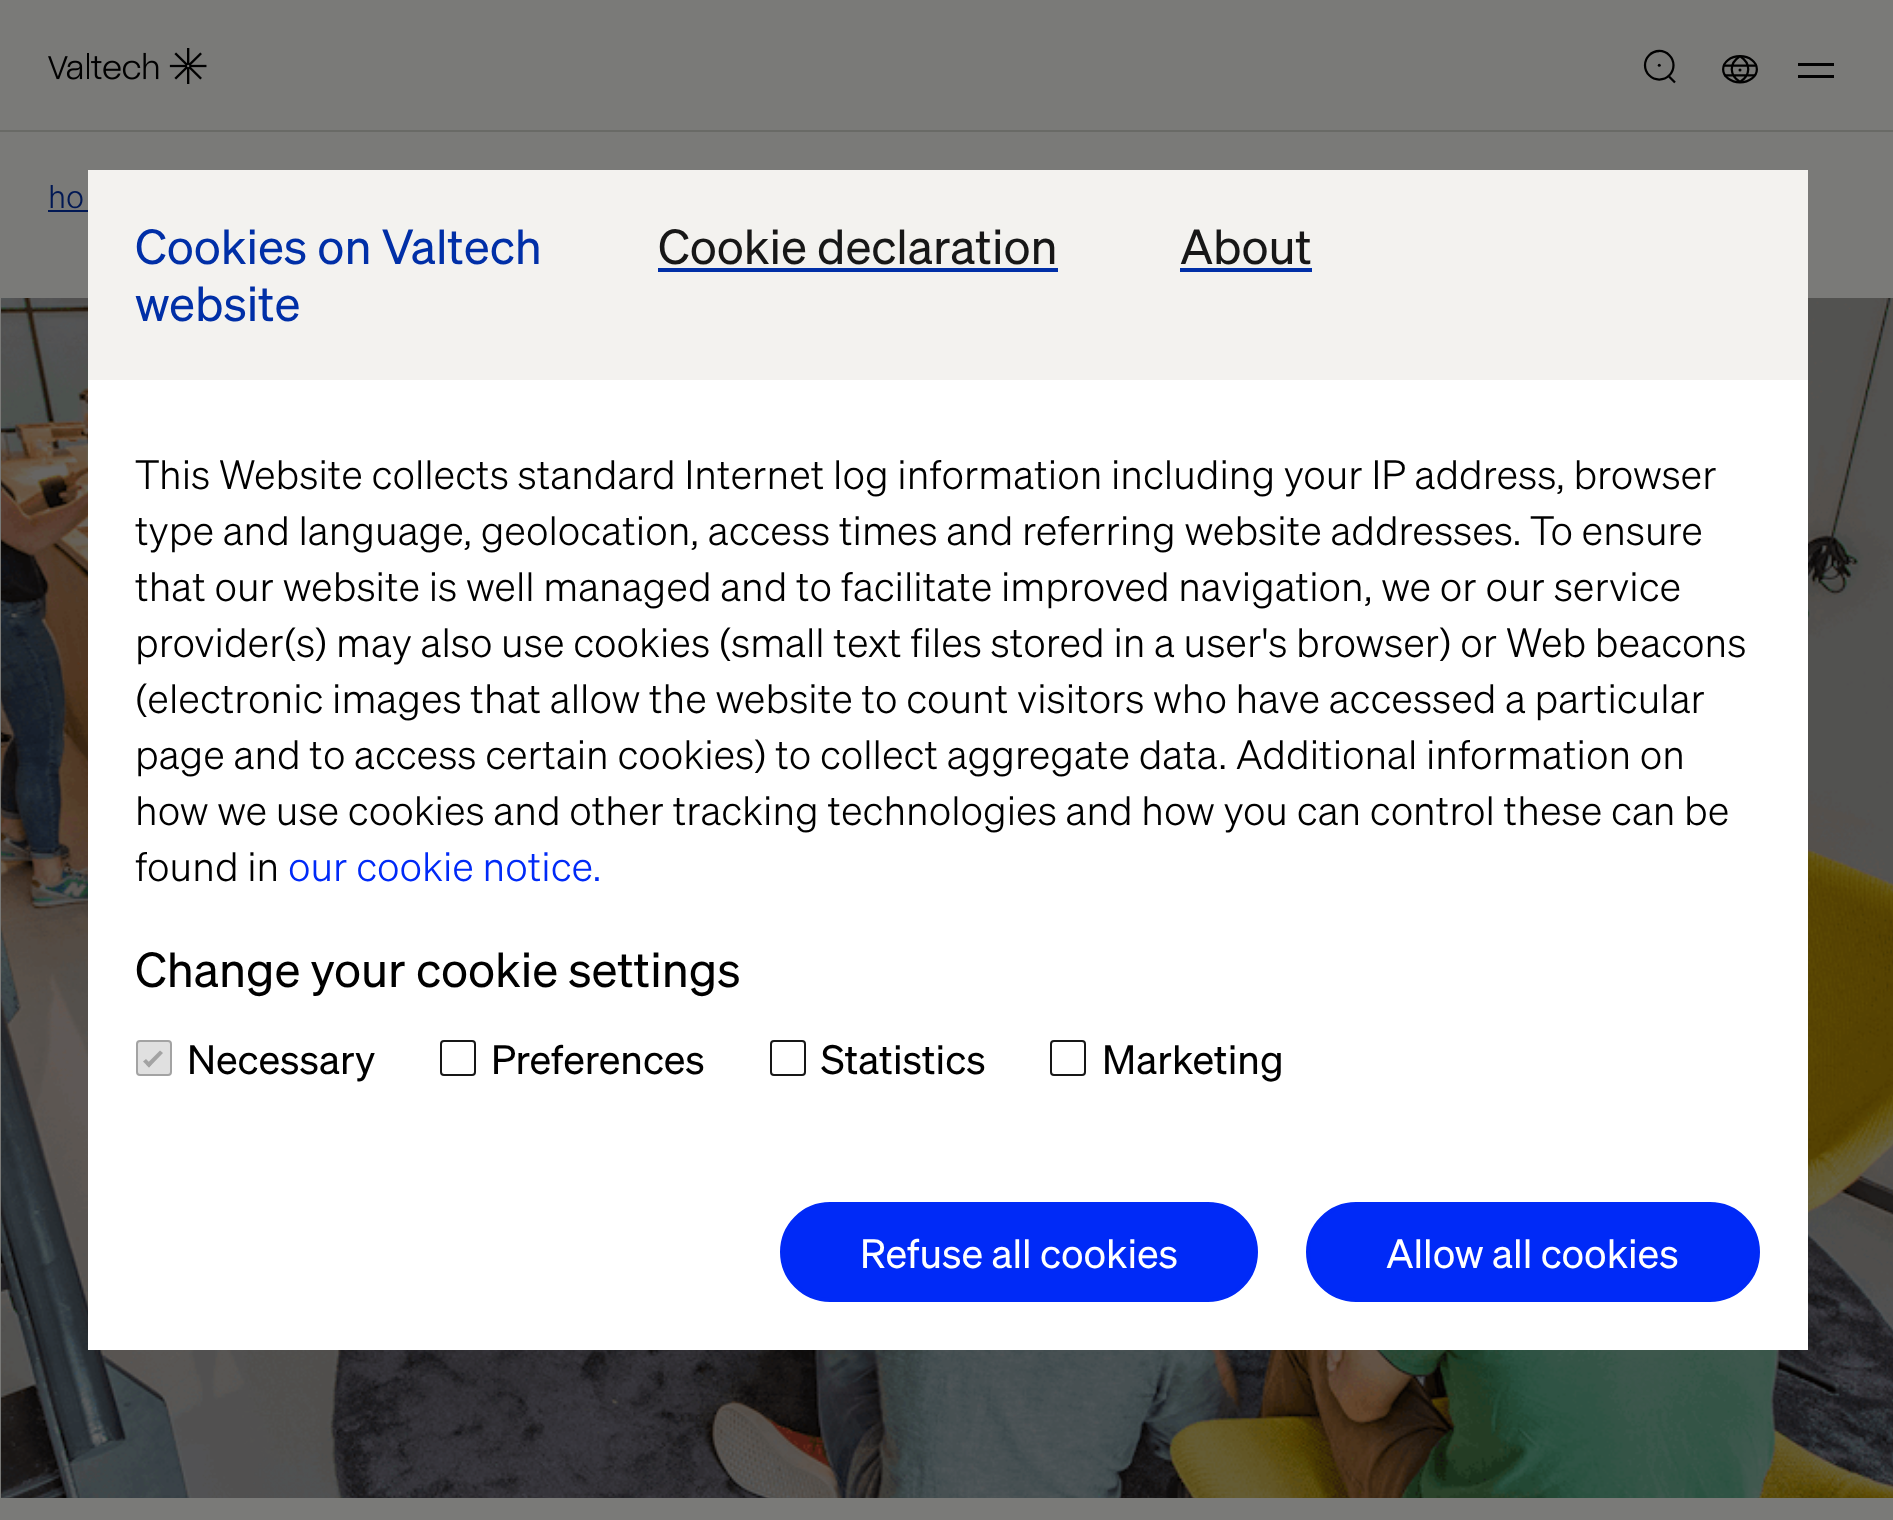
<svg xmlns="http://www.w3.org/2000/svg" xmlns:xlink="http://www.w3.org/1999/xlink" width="1893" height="1520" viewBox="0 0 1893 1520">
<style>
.cls-1{font:300 32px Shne;fill:#011854}
.cls-2{font:48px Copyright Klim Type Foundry;fill:#002fa7}
.cls-3{font:48px Copyright Klim Type Foundry;fill:#171717}
.cls-4{font:300 40px Shne;fill:#000000}
.cls-5{font:300 40px Shne;fill:#002af7}
.cls-6{font:48px Copyright Klim Type Foundry;fill:#000000}
.cls-7{font:40px Copyright Klim Type Foundry;fill:#000000}
.cls-8{font:40px Copyright Klim Type Foundry;fill:#ffffff}
</style>
<rect width="100%" height="100%" fill="#7a7a78"/>
<image xlink:href="image0.png" x="48" y="48" width="159" height="36"/>
<image xlink:href="image1.png" x="1643" y="49" width="33" height="35"/>
<image xlink:href="image2.png" x="1722" y="55" width="36" height="29"/>
<rect fill="#010101" x="1798" y="63" width="36" height="3"/>
<rect fill="#010101" x="1798" y="75" width="36" height="3"/>
<rect fill="#696a66" x="0" y="130" width="1893" height="2"/>
<rect fill="#011854" x="48" y="210" width="40" height="2"/>
<image xlink:href="image3.png" x="1" y="298" width="1892" height="1200"/>
<rect fill="#ffffff" x="88" y="380" width="1720" height="970"/>
<rect fill="#f3f2ef" x="88" y="170" width="1720" height="210"/>
<rect fill="#002fa7" x="658" y="268" width="400" height="4"/>
<rect fill="#002fa7" x="1180" y="268" width="132" height="4"/>
<rect fill="#e0e0e0" stroke="#a3a3a3" stroke-width="2" x="137" y="1041" width="34" height="34" rx="3"/>
<path fill="#a3a3a3" d="M160 1050.5L163 1053L149 1067.5L146 1064.5Z"/>
<path fill="#a3a3a3" d="M146 1059L151.5 1064.5L149 1067.5L143 1061.5Z"/>
<rect fill="none" stroke="#171717" stroke-width="2" x="441" y="1041" width="34" height="34" rx="3"/>
<rect fill="none" stroke="#171717" stroke-width="2" x="771" y="1041" width="34" height="34" rx="3"/>
<rect fill="none" stroke="#171717" stroke-width="2" x="1051" y="1041" width="34" height="34" rx="3"/>
<rect fill="#002af7" stroke="#002af7" stroke-width="4" x="782" y="1204" width="474" height="96" rx="48"/>
<rect fill="#002af7" stroke="#002af7" stroke-width="4" x="1308" y="1204" width="450" height="96" rx="48"/>
<text class="cls-1" x="48" y="208">ho</text>
<text class="cls-2"><tspan x="135" y="264">Cookies on Valtech</tspan><tspan x="135" y="321">website</tspan></text>
<text class="cls-3" x="658" y="264">Cookie declaration</text>
<text class="cls-3" x="1180" y="264">About</text>
<text class="cls-4"><tspan x="135" y="489">This Website collects standard Internet log information including your IP address, browser</tspan><tspan x="135" y="545">type and language, geolocation, access times and referring website addresses. To ensure</tspan><tspan x="135" y="601">that our website is well managed and to facilitate improved navigation, we or our service</tspan><tspan x="135" y="657">provider(s) may also use cookies (small text files stored in a user's browser) or Web beacons</tspan><tspan x="135" y="713">(electronic images that allow the website to count visitors who have accessed a particular</tspan><tspan x="135" y="769">page and to access certain cookies) to collect aggregate data. Additional information on</tspan><tspan x="135" y="825">how we use cookies and other tracking technologies and how you can control these can be</tspan><tspan x="135" y="881">found in</tspan></text>
<text class="cls-5" x="288" y="881">our cookie notice.</text>
<text class="cls-6" x="135" y="987">Change your cookie settings</text>
<text class="cls-7" x="187" y="1074">Necessary</text>
<text class="cls-7" x="491" y="1074">Preferences</text>
<text class="cls-7" x="821" y="1074">Statistics</text>
<text class="cls-7" x="1102" y="1074">Marketing</text>
<text class="cls-8" x="860" y="1268">Refuse all cookies</text>
<text class="cls-8" x="1386" y="1268">Allow all cookies</text>
</svg>
